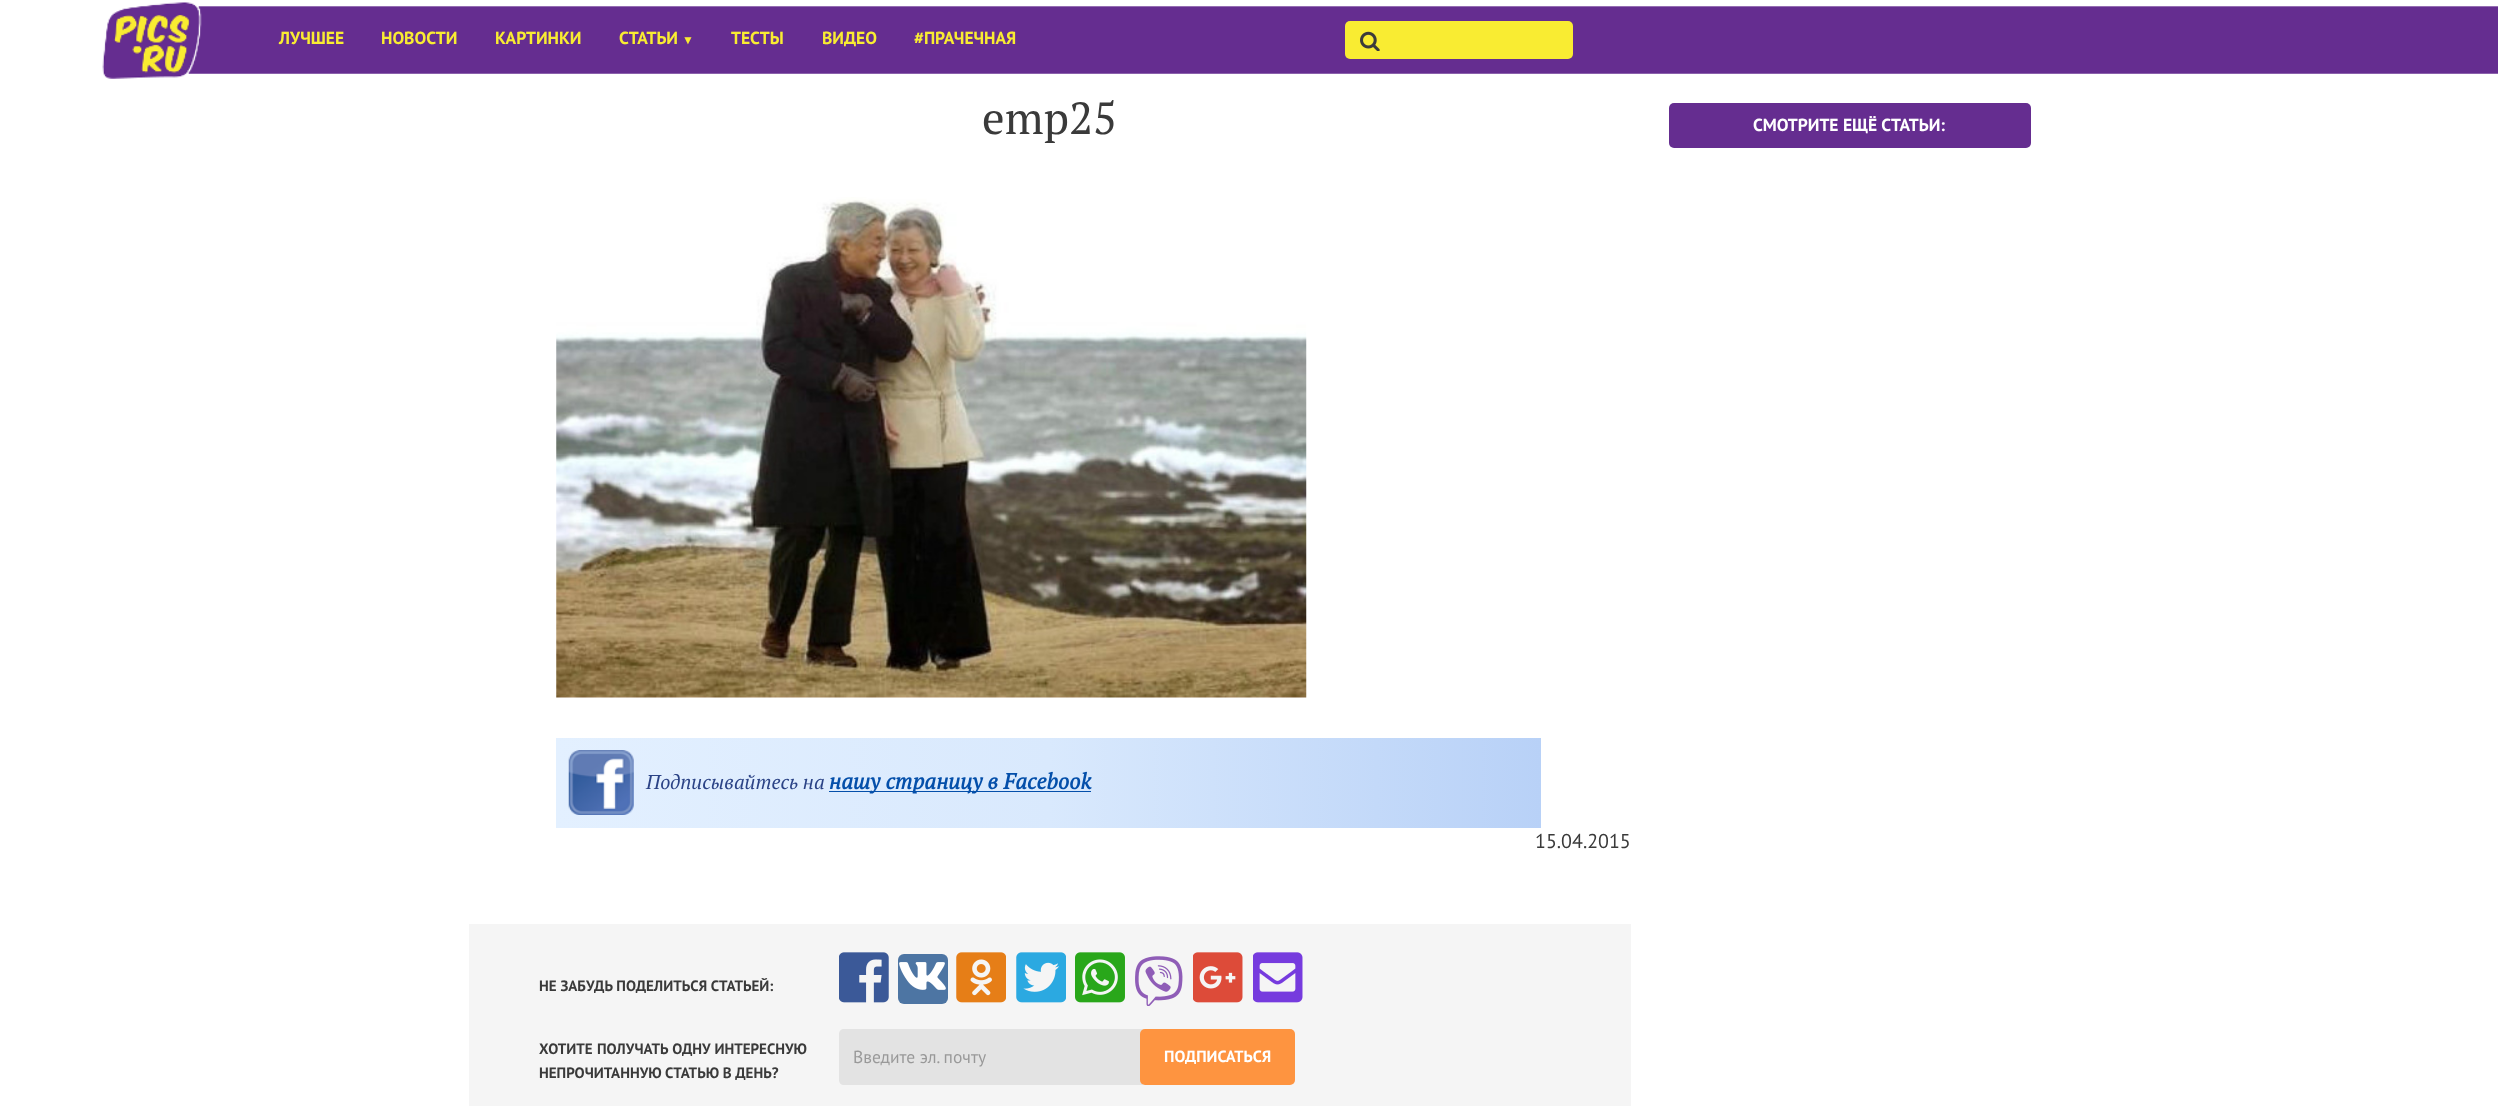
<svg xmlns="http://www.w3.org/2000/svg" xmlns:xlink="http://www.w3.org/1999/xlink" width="2498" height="1106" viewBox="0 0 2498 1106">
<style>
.cls-1{font:bold 17.5px PT Sans;fill:#f9ec32}
.cls-2{font:bold 12px Liberation Sans;fill:#f9ec32}
.cls-3{font:45px PT Serif;fill:#3a3a3a}
.cls-4{font:italic 20px PT Serif;fill:#2b4386}
.cls-5{font:italic bold 22px PT Serif;fill:#044faa}
.cls-6{font:20px PT Sans;fill:#3a3a3a}
.cls-7{font:bold 15px PT Sans;fill:#3a3a3a}
.cls-8{font:17.5px PT Sans;fill:#999999}
.cls-9{font:bold 16.25px PT Sans;fill:#ffffff}
.cls-10{font:bold 17.5px PT Sans;fill:#ffffff}
</style>
<defs>
<linearGradient id="g1" gradientUnits="userSpaceOnUse" x1="556" y1="783" x2="1541" y2="783"><stop offset="0" stop-color="#e3f0ff"/><stop offset="0.5" stop-color="#d9e9fd"/><stop offset="1" stop-color="#b8d1f7"/></linearGradient>
</defs>
<rect width="100%" height="100%" fill="#ffffff"/>
<image xlink:href="image0.png" x="102" y="2" width="2396" height="77"/>
<rect fill="#f9ec32" x="1345" y="21" width="228" height="38" rx="5"/>
<image xlink:href="image1.png" x="1360" y="31" width="20" height="20"/>
<image xlink:href="image2.png" x="556" y="197" width="751" height="501"/>
<rect fill="url(#g1)" x="556" y="738" width="985" height="90"/>
<image xlink:href="image3.png" x="568" y="750" width="66" height="65"/>
<rect fill="#044faa" x="829" y="791" width="262" height="1"/>
<rect fill="#f5f5f5" x="469" y="924" width="1162" height="182"/>
<image xlink:href="image4.png" x="839" y="952" width="50" height="51"/>
<rect fill="#4d75a3" x="898" y="954" width="50" height="50" rx="6"/>
<image xlink:href="image5.png" x="899" y="962" width="47" height="28"/>
<image xlink:href="image6.png" x="956" y="952" width="50" height="51"/>
<image xlink:href="image7.png" x="1016" y="952" width="50" height="51"/>
<image xlink:href="image8.png" x="1075" y="952" width="50" height="51"/>
<image xlink:href="image9.png" x="1135" y="956" width="48" height="50"/>
<image xlink:href="image10.png" x="1193" y="952" width="50" height="51"/>
<image xlink:href="image11.png" x="1253" y="952" width="50" height="51"/>
<path fill="#e3e3e3" d="M844 1029H1143V1085H844C841 1085 839 1083 839 1080V1034C839 1031 841 1029 844 1029Z"/>
<rect fill="#fe9440" x="1140" y="1029" width="155" height="56" rx="5"/>
<rect fill="#652d90" x="1669" y="103" width="362" height="45" rx="5"/>
<text class="cls-1" x="279" y="44">ЛУЧШЕЕ</text>
<text class="cls-1" x="381" y="44">НОВОСТИ</text>
<text class="cls-1" x="495" y="44">КАРТИНКИ</text>
<text class="cls-1" x="619" y="44">СТАТЬИ</text>
<text class="cls-2" x="682" y="44">▼</text>
<text class="cls-1" x="731" y="44">ТЕСТЫ</text>
<text class="cls-1" x="822" y="44">ВИДЕО</text>
<text class="cls-1" x="914" y="44">#ПРАЧЕЧНАЯ</text>
<text class="cls-3" x="982" y="134">emp25</text>
<text class="cls-4" x="646" y="789">Подписывайтесь на</text>
<text class="cls-5" x="829" y="789">нашу страницу в Facebook</text>
<text class="cls-6" x="1535" y="848">15.04.2015</text>
<text class="cls-7" x="539" y="991">НЕ ЗАБУДЬ ПОДЕЛИТЬСЯ СТАТЬЕЙ:</text>
<text class="cls-7"><tspan x="539" y="1054" word-spacing="0.5">ХОТИТЕ ПОЛУЧАТЬ ОДНУ ИНТЕРЕСНУЮ</tspan><tspan x="539" y="1078">НЕПРОЧИТАННУЮ СТАТЬЮ В ДЕНЬ?</tspan></text>
<text class="cls-8" x="853" y="1063">Введите эл. почту</text>
<text class="cls-9" x="1164" y="1062">ПОДПИСАТЬСЯ</text>
<text class="cls-10" x="1753" y="131">СМОТРИТЕ ЕЩЁ СТАТЬИ:</text>
</svg>
